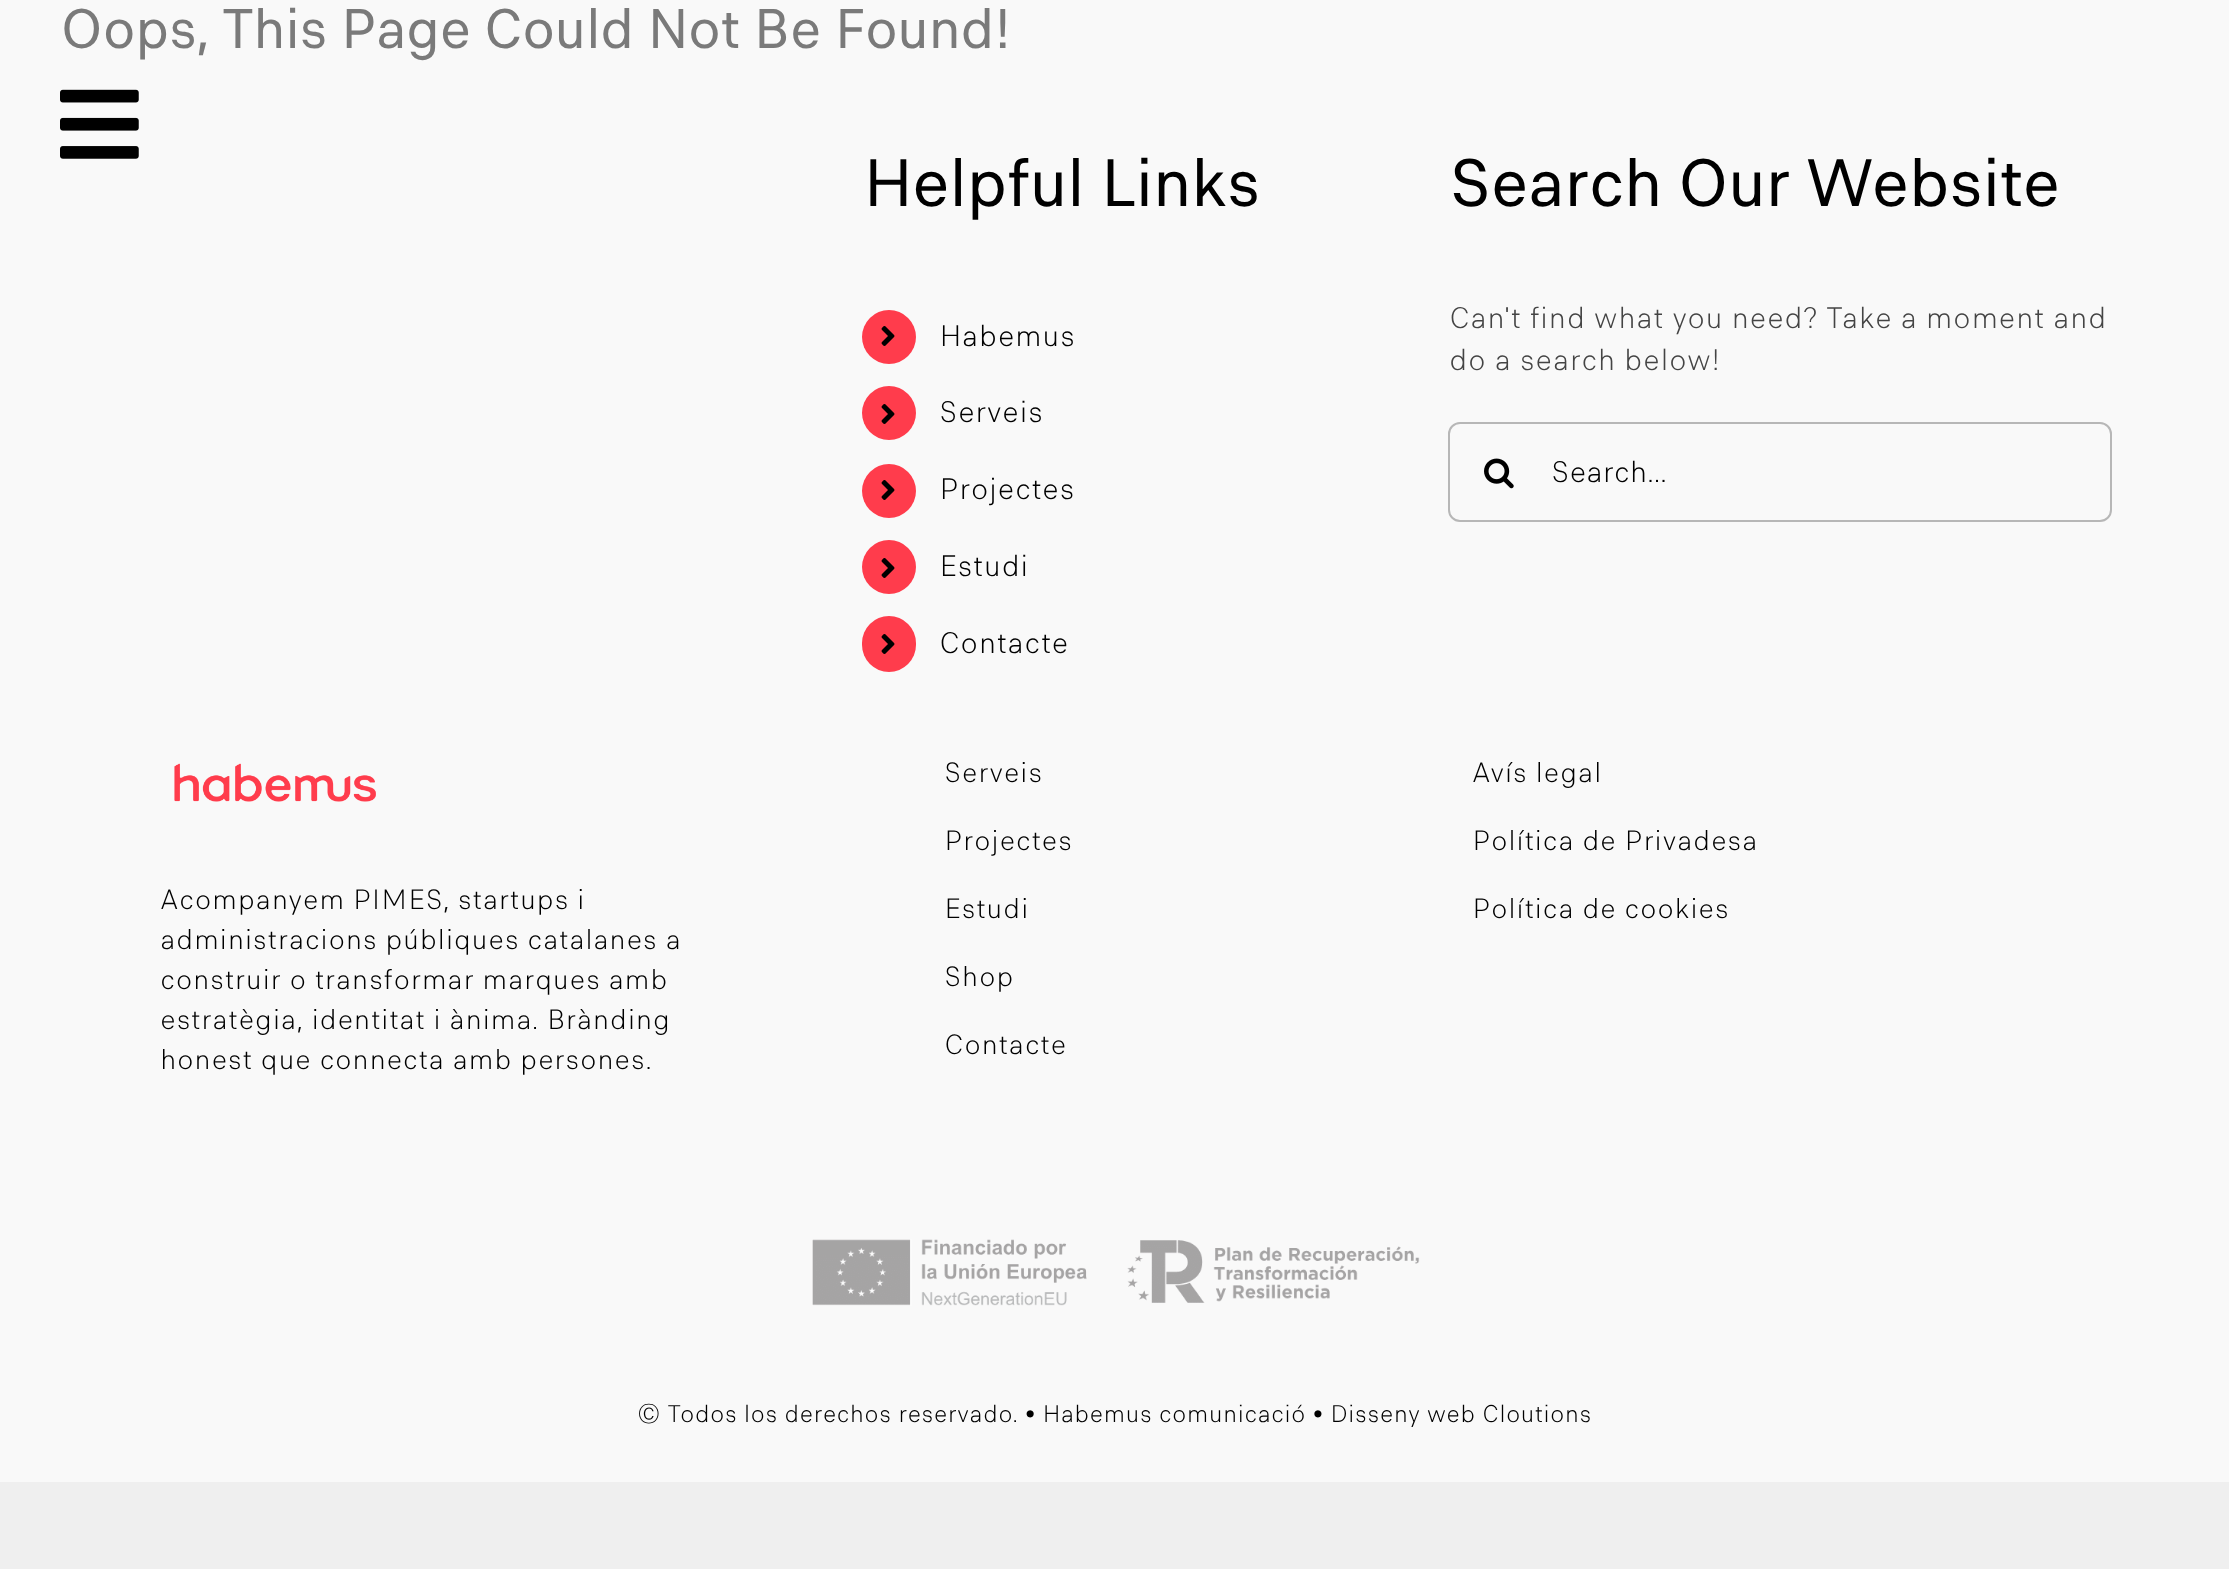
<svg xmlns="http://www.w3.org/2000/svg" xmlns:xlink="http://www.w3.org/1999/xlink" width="2229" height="1569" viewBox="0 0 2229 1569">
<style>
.cls-1{font:60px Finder;letter-spacing:-0.9px;fill:#7a7a7a}
.cls-2{font:72px Finder;letter-spacing:-1.1px;fill:#000000}
.cls-3{font:300 32px Finder;letter-spacing:0.5px;fill:#000000}
.cls-4{font:300 32px Finder;letter-spacing:0.5px;fill:#444444}
.cls-5{font:300 32px Finder;fill:#000000}
.cls-6{font:300 30px Finder;letter-spacing:0.6px;fill:#000000}
.cls-7{font:300 26px Finder;letter-spacing:0.25px;fill:#000000}
</style>
<rect width="100%" height="100%" fill="#efefef"/>
<rect fill="#f9f9f9" x="0" y="0" width="2229" height="1482"/>
<circle fill="#ff3c4c" cx="889" cy="337" r="27"/>
<image xlink:href="image0.png" x="881" y="326" width="14" height="20"/>
<circle fill="#ff3c4c" cx="889" cy="413" r="27"/>
<image xlink:href="image0.png" x="881" y="404" width="14" height="20"/>
<circle fill="#ff3c4c" cx="889" cy="491" r="27"/>
<image xlink:href="image0.png" x="881" y="480" width="14" height="20"/>
<circle fill="#ff3c4c" cx="889" cy="567" r="27"/>
<image xlink:href="image0.png" x="881" y="558" width="14" height="20"/>
<rect fill="#ff3c4c" x="862" y="616" width="54" height="56" rx="27"/>
<image xlink:href="image0.png" x="881" y="634" width="14" height="20"/>
<rect fill="none" stroke="#b7b7b7" stroke-width="2" x="1449" y="423" width="662" height="98" rx="11"/>
<image xlink:href="image1.png" x="1484" y="458" width="30" height="31"/>
<image xlink:href="image2.png" x="60" y="89" width="79" height="70"/>
<image xlink:href="image3.png" x="174" y="763" width="202" height="39"/>
<image xlink:href="image4.png" x="812" y="1239" width="608" height="67"/>
<text class="cls-1" x="60" y="48">Oops, This Page Could Not Be Found!</text>
<text class="cls-2" x="862" y="206">Helpful Links</text>
<text class="cls-3" x="939" y="346">Habemus</text>
<text class="cls-3" x="939" y="422">Serveis</text>
<text class="cls-3" x="939" y="499">Projectes</text>
<text class="cls-3" x="939" y="576">Estudi</text>
<text class="cls-3" x="939" y="653">Contacte</text>
<text class="cls-2" x="1449" y="206">Search Our Website</text>
<text class="cls-4"><tspan x="1449" y="328">Can't find what you need? Take a moment and</tspan><tspan x="1449" y="370">do a search below!</tspan></text>
<text class="cls-5" x="1551" y="482">Search...</text>
<text class="cls-6" x="944" y="782">Serveis</text>
<text class="cls-6" x="944" y="850">Projectes</text>
<text class="cls-6" x="944" y="918">Estudi</text>
<text class="cls-6" x="944" y="986">Shop</text>
<text class="cls-6" x="944" y="1054">Contacte</text>
<text class="cls-6" x="1472" y="782">Avís legal</text>
<text class="cls-6" x="1472" y="850">Política de Privadesa</text>
<text class="cls-6" x="1472" y="918">Política de cookies</text>
<text class="cls-6"><tspan x="160" y="909">Acompanyem PIMES, startups i</tspan><tspan x="160" y="949">administracions públiques catalanes a</tspan><tspan x="160" y="989">construir o transformar marques amb</tspan><tspan x="160" y="1029">estratègia, identitat i ànima. Brànding</tspan><tspan x="160" y="1069">honest que connecta amb persones.</tspan></text>
<text class="cls-7" x="637" y="1422">© Todos los derechos reservado. • Habemus comunicació • Disseny web Cloutions</text>
</svg>
